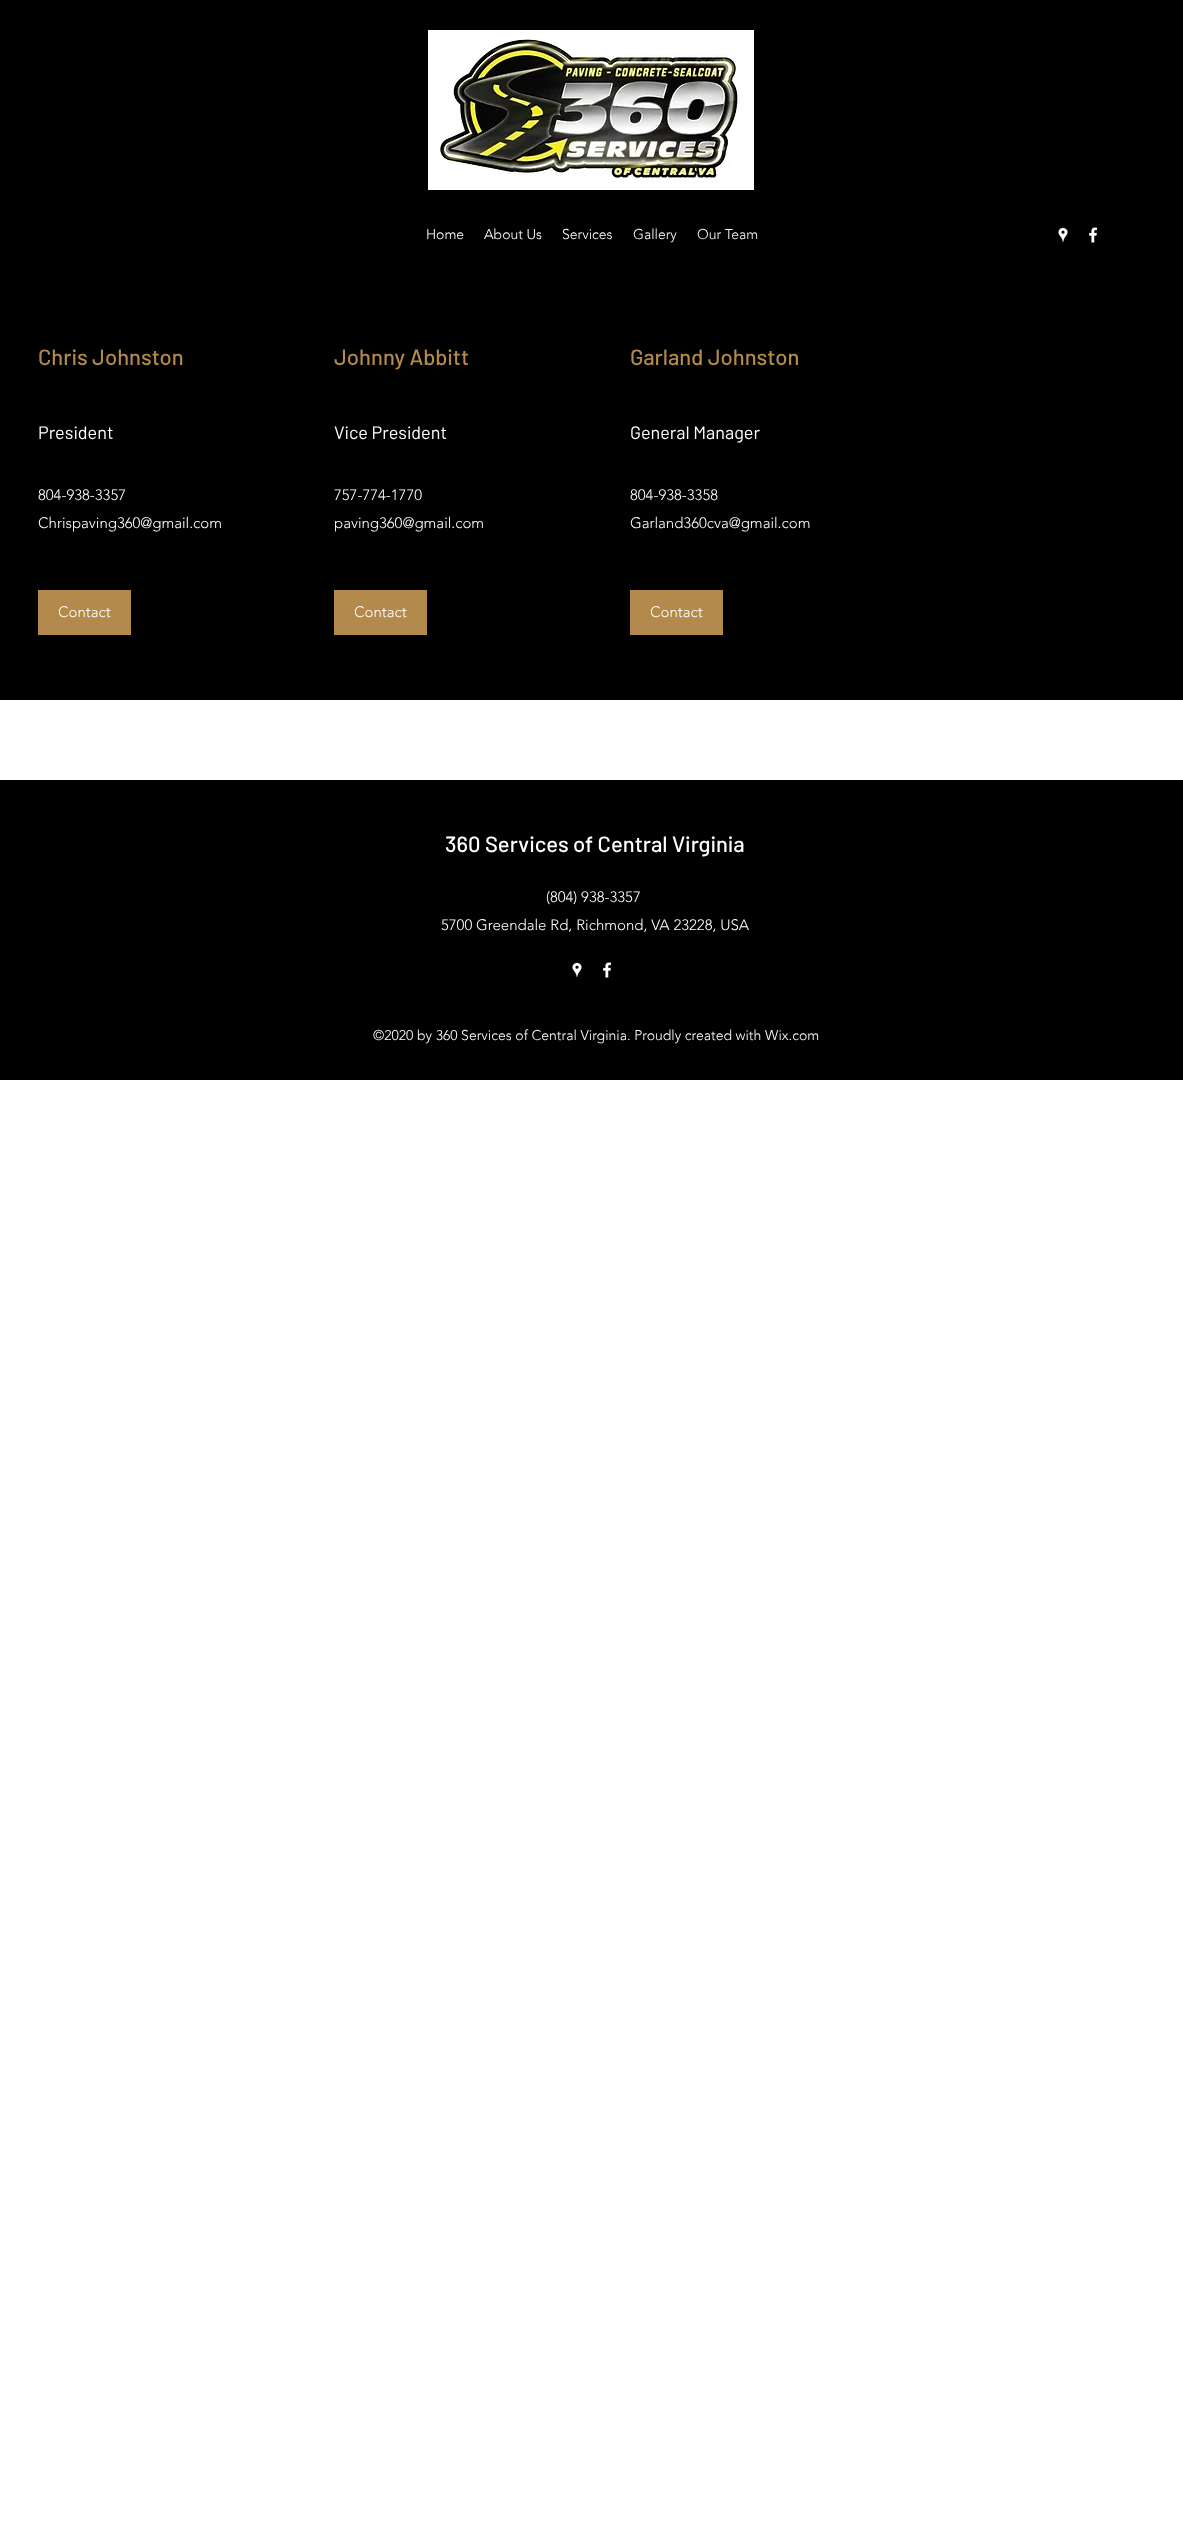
<svg xmlns="http://www.w3.org/2000/svg" xmlns:xlink="http://www.w3.org/1999/xlink" width="1183" height="2534" viewBox="0 0 1183 2534">
<style>
.cls-1{font:300 14px 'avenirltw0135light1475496';fill:#ffffff}
.cls-2{font:300 14px 'avenirltw0135light1475496';fill:#f7f7f7}
.cls-3{font:500 22px Barlow;fill:#b38a4c}
.cls-4{font:18px Barlow;fill:#ffffff}
.cls-5{font:300 15px 'avenirltw0135light1475496';fill:#ffffff}
.cls-6{font:500 22px Barlow;fill:#ffffff}
</style>
<rect width="100%" height="100%" fill="#ffffff"/>
<rect fill="#000000" x="0" y="0" width="1183" height="700"/>
<image xlink:href="image0.png" x="428" y="30" width="326" height="160"/>
<image xlink:href="image1.png" x="1058" y="227" width="10" height="15"/>
<image xlink:href="image2.png" x="1089" y="227" width="9" height="16"/>
<rect fill="#b38a4c" x="38" y="590" width="93" height="45"/>
<rect fill="#b38a4c" x="334" y="590" width="93" height="45"/>
<rect fill="#b38a4c" x="630" y="590" width="93" height="45"/>
<rect fill="#000000" x="0" y="780" width="1183" height="300"/>
<image xlink:href="image1.png" x="572" y="962" width="10" height="15"/>
<image xlink:href="image2.png" x="603" y="962" width="9" height="16"/>
<text class="cls-1" x="426" y="239">Home</text>
<text class="cls-1" x="484" y="239">About Us</text>
<text class="cls-1" x="562" y="239">Services</text>
<text class="cls-1" x="633" y="239">Gallery</text>
<text class="cls-2" x="697" y="239">Our Team</text>
<text class="cls-3" x="38" y="365">Chris Johnston</text>
<text class="cls-4" x="38" y="439">President</text>
<text class="cls-5"><tspan x="38" y="500">804-938-3357</tspan><tspan x="38" y="528">Chrispaving360@gmail.com</tspan></text>
<text class="cls-5" x="58" y="617">Contact</text>
<text class="cls-3" x="334" y="365">Johnny Abbitt</text>
<text class="cls-4" x="334" y="439">Vice President</text>
<text class="cls-5"><tspan x="334" y="500">757-774-1770</tspan><tspan x="334" y="528">paving360@gmail.com</tspan></text>
<text class="cls-5" x="354" y="617">Contact</text>
<text class="cls-3" x="630" y="365">Garland Johnston</text>
<text class="cls-4" x="630" y="439">General Manager</text>
<text class="cls-5"><tspan x="630" y="500">804-938-3358</tspan><tspan x="630" y="528">Garland360cva@gmail.com</tspan></text>
<text class="cls-5" x="650" y="617">Contact</text>
<text class="cls-6" x="445" y="852">360 Services of Central Virginia</text>
<text class="cls-5" x="546" y="902">(804) 938-3357</text>
<text class="cls-5" x="441" y="930">5700 Greendale Rd, Richmond, VA 23228, USA</text>
<text class="cls-1" x="373" y="1040">©2020 by 360 Services of Central Virginia. Proudly created with Wix.com</text>
</svg>
